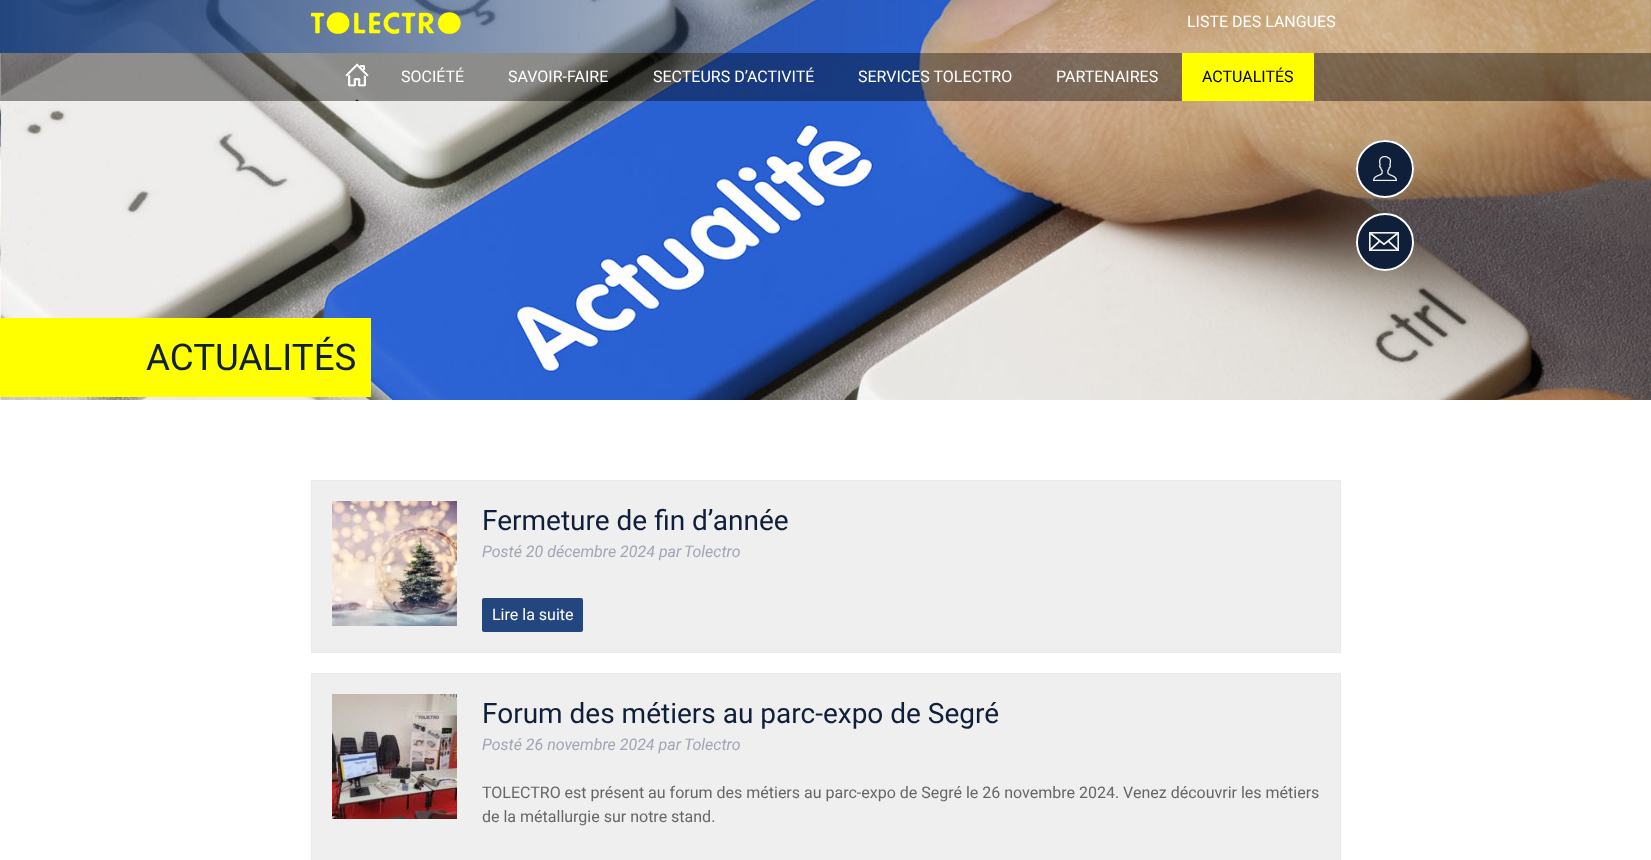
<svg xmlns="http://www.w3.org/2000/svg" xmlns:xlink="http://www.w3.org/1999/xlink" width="1651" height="860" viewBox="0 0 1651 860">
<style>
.cls-1{font:16px Roboto;fill:#ffffff}
.cls-2{font:16px Roboto;fill:#000000}
.cls-3{font:36.75px Roboto;fill:#0f1f39}
.cls-4{font:28px Roboto;fill:#0f1f39}
.cls-5{font:italic 16px Roboto;fill:#9fa6b4}
.cls-6{font:16px Roboto;fill:#666666}
</style>
<rect width="100%" height="100%" fill="#ffffff"/>
<image xlink:href="image4.png" x="0" y="0" width="1651" height="400"/>
<image xlink:href="image0.png" x="311" y="12" width="150" height="22"/>
<circle fill="#0f1f39" cx="1385" cy="169" r="29"/>
<image xlink:href="image1.png" x="1373" y="156" width="24" height="25"/>
<circle fill="none" stroke="#ffffff" stroke-width="2" cx="1385" cy="169" r="28"/>
<circle fill="#0f1f39" cx="1385" cy="242" r="29"/>
<image xlink:href="image2.png" x="1369" y="232" width="30" height="19"/>
<circle fill="none" stroke="#ffffff" stroke-width="2" cx="1385" cy="242" r="28"/>
<rect fill="#000000" fill-opacity="0.4" x="0" y="53" width="1651" height="48"/>
<image xlink:href="image3.png" x="345" y="63" width="24" height="38"/>
<rect fill="#ffff00" x="1182" y="53" width="132" height="48"/>
<rect fill="#ffff00" x="0" y="318" width="371" height="79"/>
<rect fill="#efefef" stroke="#eaeaea" x="311.5" y="480.5" width="1029" height="172"/>
<image xlink:href="image5.png" x="332" y="501" width="125" height="125"/>
<rect fill="#23467f" x="482" y="598" width="101" height="34" rx="2"/>
<rect fill="#efefef" stroke="#eaeaea" x="311.5" y="673.5" width="1029" height="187"/>
<image xlink:href="image6.png" x="332" y="694" width="125" height="125"/>
<text class="cls-1" x="1187" y="27">LISTE DES LANGUES</text>
<text class="cls-1" x="401" y="82">SOCIÉTÉ</text>
<text class="cls-1" x="508" y="82">SAVOIR-FAIRE</text>
<text class="cls-1" x="653" y="82">SECTEURS D’ACTIVITÉ</text>
<text class="cls-1" x="858" y="82">SERVICES TOLECTRO</text>
<text class="cls-1" x="1056" y="82">PARTENAIRES</text>
<text class="cls-2" x="1202" y="82">ACTUALITÉS</text>
<text class="cls-3" x="146" y="370">ACTUALITÉS</text>
<text class="cls-4" x="482" y="530">Fermeture de fin d’année</text>
<text class="cls-5" x="482" y="557">Posté 20 décembre 2024 par</text>
<text class="cls-5" x="684" y="557">Tolectro</text>
<text class="cls-1" x="492" y="620">Lire la suite</text>
<text class="cls-4" x="482" y="723">Forum des métiers au parc-expo de Segré</text>
<text class="cls-5" x="482" y="750">Posté 26 novembre 2024 par</text>
<text class="cls-5" x="684" y="750">Tolectro</text>
<text class="cls-6"><tspan x="482" y="798">TOLECTRO est présent au forum des métiers au parc-expo de Segré le 26 novembre 2024. Venez découvrir les métiers</tspan><tspan x="482" y="822">de la métallurgie sur notre stand.</tspan></text>
</svg>
